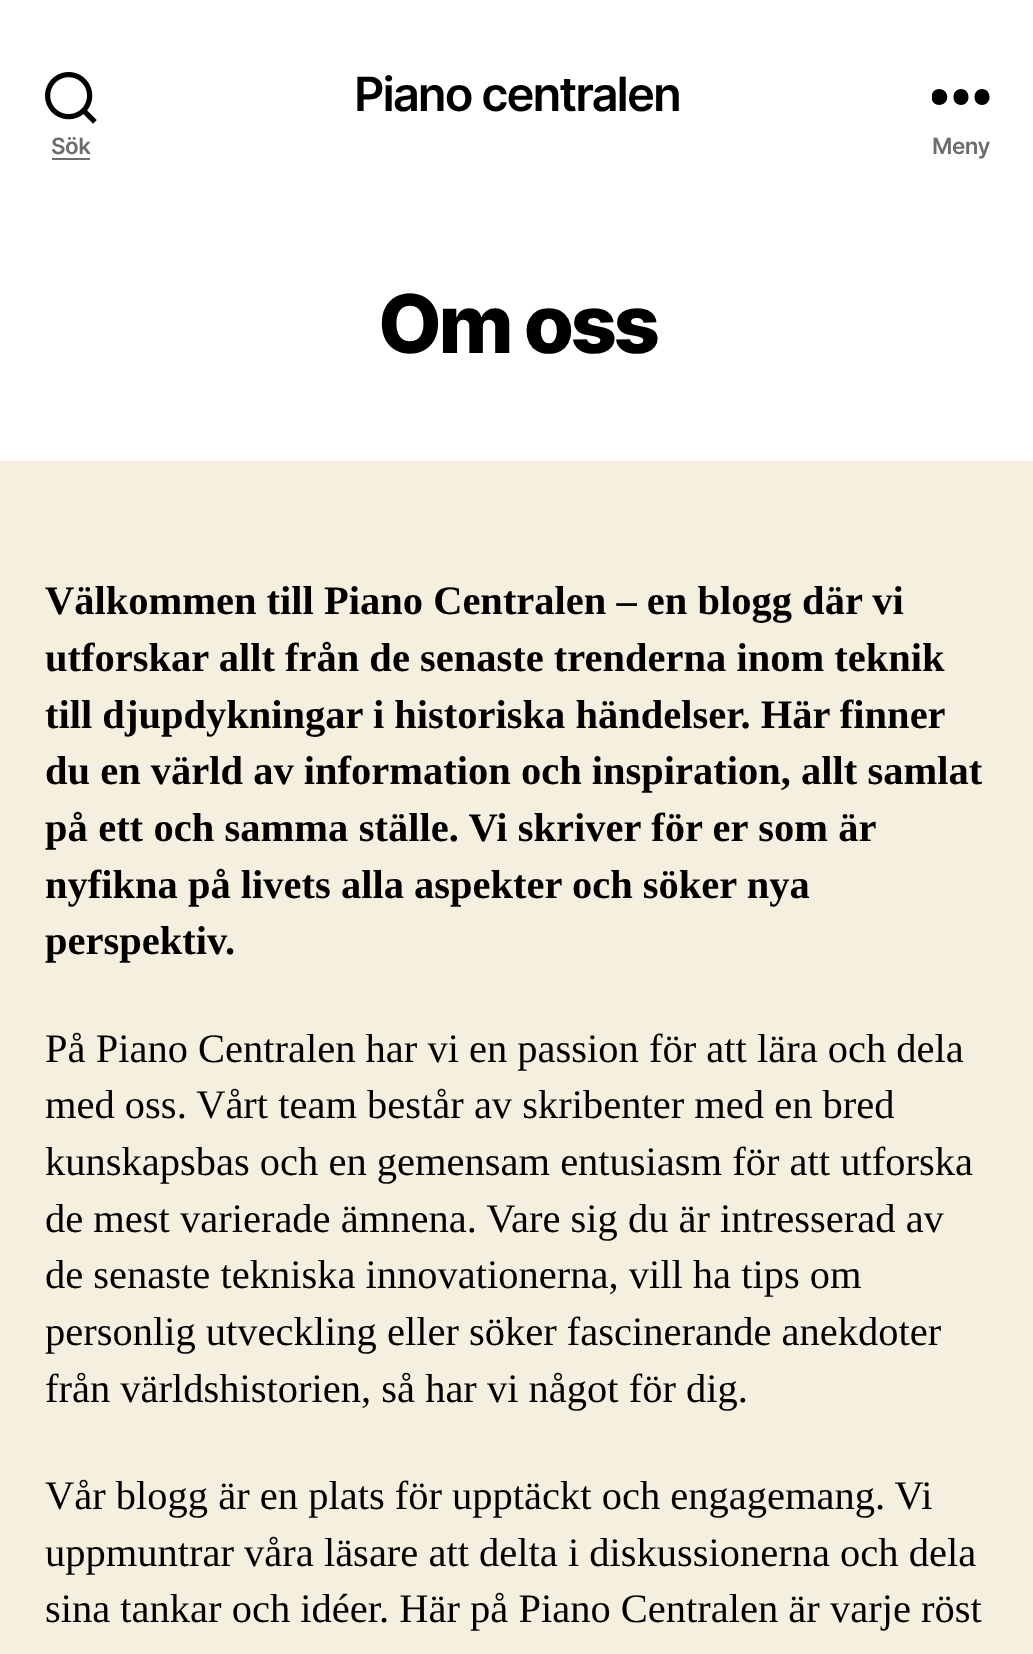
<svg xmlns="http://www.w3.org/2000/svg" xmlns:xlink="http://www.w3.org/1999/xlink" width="1033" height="1654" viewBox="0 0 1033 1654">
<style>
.cls-1{font:600 47.25px Inter;letter-spacing:-2px;fill:#000000}
.cls-2{font:600 22.5px Inter;letter-spacing:-0.5px;fill:#6d6d6d}
.cls-3{font:800 81px Inter;letter-spacing:-3.5px;fill:#000000}
.cls-4{font:bold 40.5px Liberation Serif;fill:#000000}
.cls-5{font:40.5px Liberation Serif;fill:#000000}
</style>
<defs>
<clipPath id="clip1"><rect x="932" y="88" width="58" height="18"/></clipPath>
</defs>
<rect width="100%" height="100%" fill="#f5efe0"/>
<rect fill="#ffffff" x="0" y="0" width="1033" height="461"/>
<image xlink:href="image0.png" x="45" y="72" width="52" height="52"/>
<rect fill="#6d6d6d" x="52" y="158" width="38" height="2"/>
<g clip-path="url(#clip1)">
<path fill="#000000" fill-rule="evenodd" d="M939 105C929 105 929 89 939 89C950 89 950 105 939 105ZM961 105C951 105 951 89 961 89C971 89 971 105 961 105ZM982 105C972 105 972 89 982 89C992 89 992 105 982 105Z"/>
</g>
<text class="cls-1" x="354" y="111">Piano centralen</text>
<text class="cls-2" x="51" y="154">Sök</text>
<text class="cls-2" x="932" y="154">Meny</text>
<text class="cls-3" x="378" y="353">Om oss</text>
<text class="cls-4"><tspan x="45" y="614">Välkommen till Piano Centralen – en blogg där vi</tspan><tspan x="45" y="671">utforskar allt från de senaste trenderna inom teknik</tspan><tspan x="45" y="728">till djupdykningar i historiska händelser. Här finner</tspan><tspan x="45" y="784">du en värld av information och inspiration, allt samlat</tspan><tspan x="45" y="841" word-spacing="0.25">på ett och samma ställe. Vi skriver för er som är</tspan><tspan x="45" y="898">nyfikna på livets alla aspekter och söker nya</tspan><tspan x="45" y="954">perspektiv.</tspan></text>
<text class="cls-5"><tspan x="45" y="1062">På Piano Centralen har vi en passion för att lära och dela</tspan><tspan x="45" y="1118">med oss. Vårt team består av skribenter med en bred</tspan><tspan x="45" y="1175">kunskapsbas och en gemensam entusiasm för att utforska</tspan><tspan x="45" y="1232">de mest varierade ämnena. Vare sig du är intresserad av</tspan><tspan x="45" y="1288">de senaste tekniska innovationerna, vill ha tips om</tspan><tspan x="45" y="1345">personlig utveckling eller söker fascinerande anekdoter</tspan><tspan x="45" y="1402">från världshistorien, så har vi något för dig.</tspan></text>
<text class="cls-5"><tspan x="45" y="1509">Vår blogg är en plats för upptäckt och engagemang. Vi</tspan><tspan x="45" y="1566">uppmuntrar våra läsare att delta i diskussionerna och dela</tspan><tspan x="45" y="1622">sina tankar och idéer. Här på Piano Centralen är varje röst</tspan></text>
</svg>
